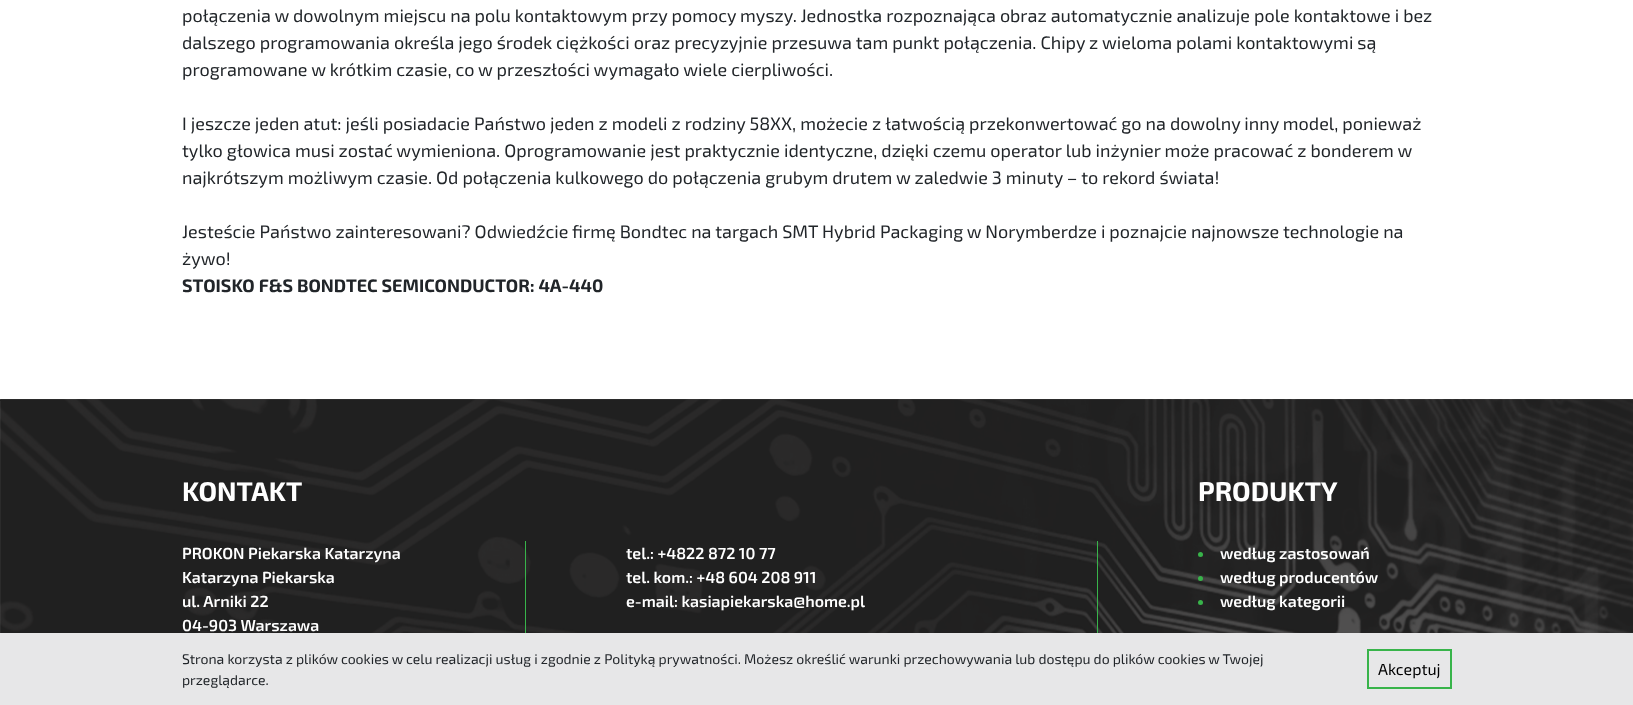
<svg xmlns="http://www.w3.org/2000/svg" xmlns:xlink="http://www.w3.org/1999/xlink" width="1633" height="705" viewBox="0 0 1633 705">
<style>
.cls-1{font:18px 'Exo 2';fill:#212529}
.cls-2{font:bold 18px 'Exo 2';fill:#212529}
.cls-3{font:bold 27px 'Exo 2';fill:#ffffff}
.cls-4{font:600 16px 'Exo 2';fill:#ffffff}
.cls-5{font:14px 'Exo 2';fill:#212529}
.cls-6{font:16px 'Exo 2';fill:#000000}
</style>
<rect width="100%" height="100%" fill="#ffffff"/>
<image xlink:href="image0.png" x="0" y="399" width="1633" height="234"/>
<rect fill="#38b44a" x="525" y="541" width="1" height="92"/>
<rect fill="#38b44a" x="1097" y="541" width="1" height="92"/>
<circle fill="#38b44a" cx="1200.5" cy="554.5" r="2.5"/>
<circle fill="#38b44a" cx="1200.5" cy="578.5" r="2.5"/>
<circle fill="#38b44a" cx="1200.5" cy="602.5" r="2.5"/>
<rect fill="#e7e7e8" x="0" y="633" width="1633" height="72"/>
<rect fill="none" stroke="#38b44a" stroke-width="2" x="1368" y="650" width="83" height="38"/>
<text class="cls-1"><tspan x="182" y="22">połączenia w dowolnym miejscu na polu kontaktowym przy pomocy myszy. Jednostka rozpoznająca obraz automatycznie analizuje pole kontaktowe i bez</tspan><tspan x="182" y="49">dalszego programowania określa jego środek ciężkości oraz precyzyjnie przesuwa tam punkt połączenia. Chipy z wieloma polami kontaktowymi są</tspan><tspan x="182" y="76">programowane w krótkim czasie, co w przeszłości wymagało wiele cierpliwości.</tspan></text>
<text class="cls-1"><tspan x="182" y="130">I jeszcze jeden atut: jeśli posiadacie Państwo jeden z modeli z rodziny 58XX, możecie z łatwością przekonwertować go na dowolny inny model, ponieważ</tspan><tspan x="182" y="157">tylko głowica musi zostać wymieniona. Oprogramowanie jest praktycznie identyczne, dzięki czemu operator lub inżynier może pracować z bonderem w</tspan><tspan x="182" y="184">najkrótszym możliwym czasie. Od połączenia kulkowego do połączenia grubym drutem w zaledwie 3 minuty – to rekord świata!</tspan></text>
<text class="cls-1"><tspan x="182" y="238">Jesteście Państwo zainteresowani? Odwiedźcie firmę Bondtec na targach SMT Hybrid Packaging w Norymberdze i poznajcie najnowsze technologie na</tspan><tspan x="182" y="265">żywo!</tspan></text>
<text class="cls-2" x="182" y="292">STOISKO F&amp;S BONDTEC SEMICONDUCTOR: 4A-440</text>
<text class="cls-3" x="182" y="501">KONTAKT</text>
<text class="cls-4"><tspan x="182" y="559">PROKON Piekarska Katarzyna</tspan><tspan x="182" y="583">Katarzyna Piekarska</tspan><tspan x="182" y="607">ul. Arniki 22</tspan><tspan x="182" y="631">04-903 Warszawa</tspan></text>
<text class="cls-4"><tspan x="626" y="559">tel.: +4822 872 10 77</tspan><tspan x="626" y="583">tel. kom.: +48 604 208 911</tspan><tspan x="626" y="607">e-mail: kasiapiekarska@home.pl</tspan></text>
<text class="cls-3" x="1198" y="501">PRODUKTY</text>
<text class="cls-4"><tspan x="1220" y="559">według zastosowań</tspan><tspan x="1220" y="583">według producentów</tspan><tspan x="1220" y="607">według kategorii</tspan></text>
<text class="cls-5"><tspan x="182" y="664">Strona korzysta z plików cookies w celu realizacji usług i zgodnie z Polityką prywatności. Możesz określić warunki przechowywania lub dostępu do plików cookies w Twojej</tspan><tspan x="182" y="685">przeglądarce.</tspan></text>
<text class="cls-6" x="1378" y="675">Akceptuj</text>
</svg>
